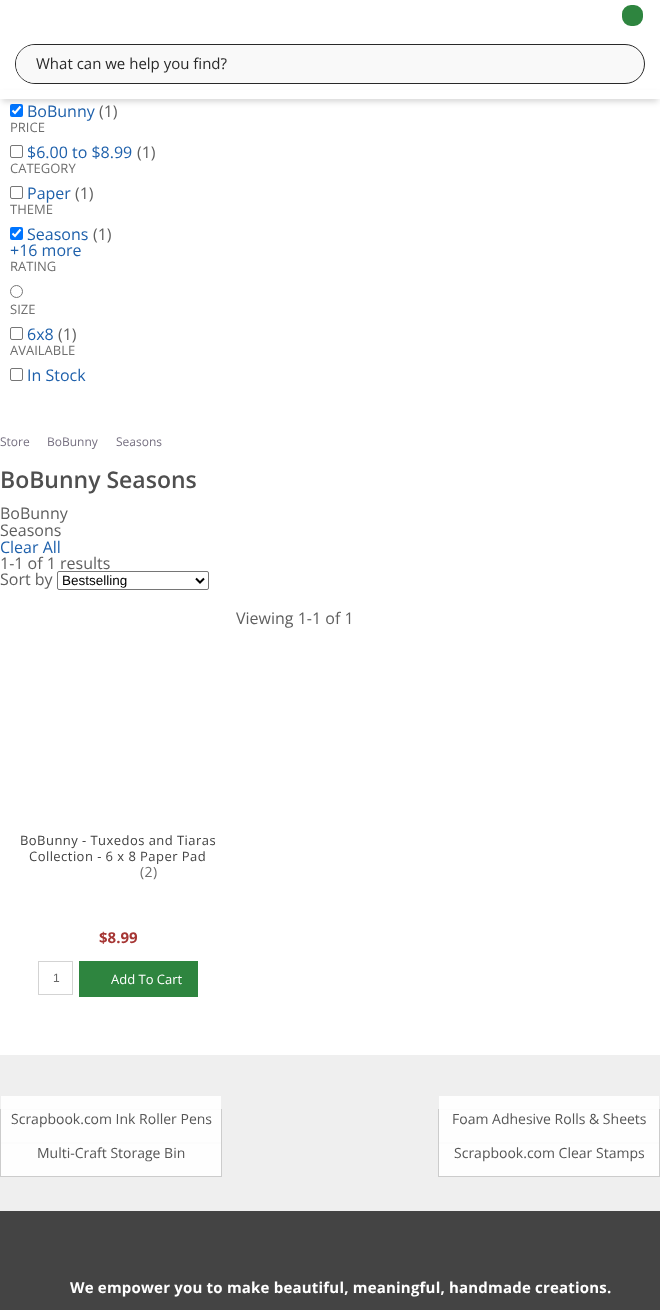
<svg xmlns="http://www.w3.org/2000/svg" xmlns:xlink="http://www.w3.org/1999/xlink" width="660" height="1310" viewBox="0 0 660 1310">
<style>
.cls-1{font:15px Open Sans;fill:#292929}
.cls-2{font:16px Open Sans;fill:#1e60ab}
.cls-3{font:16px Open Sans;fill:#5f5f5f}
.cls-4{font:13px Open Sans;fill:#6e6e6e}
.cls-5{font:12px Open Sans;fill:#767081}
.cls-6{font:600 23px Open Sans;fill:#4f4f4f}
.cls-7{font:13.5px Liberation Sans;fill:#000000}
.cls-8{font:13px Open Sans;letter-spacing:0.45px;fill:#414141}
.cls-9{font:14px Open Sans;letter-spacing:0.45px;fill:#6e6e6e}
.cls-10{font:bold 15px Open Sans;fill:#a63634}
.cls-11{font:12px Liberation Sans;fill:#686868}
.cls-12{font:13px Open Sans;fill:#ffffff}
.cls-13{font:14px Open Sans;fill:#565656}
.cls-14{font:bold 15px Open Sans;letter-spacing:0.2px;fill:#ffffff}
</style>
<rect width="100%" height="100%" fill="#ffffff"/>
<rect fill="#2e853f" stroke="#ffffff" stroke-width="2" x="621" y="4" width="23" height="23" rx="10"/>
<rect fill="#f9f9f9" stroke="#292929" x="15.5" y="44.5" width="629" height="39" rx="19.5"/>
<path fill="#f9f9f9" d="M35 45H606V83H35C24.5 83 16 74.5 16 64C16 53.5 24.5 45 35 45Z"/>
<rect fill="#0075ff" x="10" y="104" width="13" height="13" rx="2"/>
<path fill="none" stroke="#ffffff" stroke-width="2.1" d="M12.5 110.5L15 113L20.5 106.5"/>
<rect fill="#000000" fill-opacity="0.2" filter="blur(3px)" x="2" y="95" width="656" height="6"/>
<rect fill="#ffffff" x="0" y="90" width="660" height="9"/>
<rect fill="none" stroke="#767676" x="10.5" y="145.5" width="12" height="12" rx="1.5"/>
<rect fill="none" stroke="#767676" x="10.5" y="186.5" width="12" height="12" rx="1.5"/>
<rect fill="#0075ff" x="10" y="227" width="13" height="13" rx="2"/>
<path fill="none" stroke="#ffffff" stroke-width="2.1" d="M12.5 233.5L15 236L20.5 229.5"/>
<circle fill="none" stroke="#767676" cx="16.5" cy="291.5" r="6"/>
<rect fill="none" stroke="#767676" x="10.5" y="327.5" width="12" height="12" rx="1.5"/>
<rect fill="none" stroke="#767676" x="10.5" y="368.5" width="12" height="12" rx="1.5"/>
<rect fill="none" stroke="#767676" x="57.5" y="571.5" width="151" height="18" rx="1.5"/>
<path fill="none" stroke="#000000" stroke-width="2" d="M196 578.5L200 582.5L204 578.5"/>
<rect fill="none" stroke="#d3d3d3" x="38.5" y="961.5" width="34" height="33"/>
<rect fill="#2e853f" x="79" y="961" width="119" height="36"/>
<rect fill="#444444" x="0" y="1211" width="660" height="99"/>
<rect fill="#efefef" x="0" y="1055" width="660" height="156"/>
<rect fill="none" stroke="#cccccc" x="0.5" y="1109.5" width="221" height="33"/>
<rect fill="#ffffff" fill-opacity="0.93" x="1" y="1096" width="220" height="46"/>
<rect fill="none" stroke="#cccccc" x="438.5" y="1109.5" width="221" height="33"/>
<rect fill="#ffffff" fill-opacity="0.93" x="439" y="1096" width="220" height="46"/>
<rect fill="none" stroke="#cccccc" x="0.5" y="1143.5" width="221" height="33"/>
<rect fill="#ffffff" fill-opacity="0.93" x="1" y="1142" width="220" height="34"/>
<rect fill="none" stroke="#cccccc" x="438.5" y="1143.5" width="221" height="33"/>
<rect fill="#ffffff" fill-opacity="0.93" x="439" y="1142" width="220" height="34"/>
<text class="cls-1" x="36" y="69">What can we help you find?</text>
<text class="cls-2" x="27" y="117">BoBunny</text>
<text class="cls-3" x="99" y="117">(1)</text>
<text class="cls-4" x="10" y="132">PRICE</text>
<text class="cls-2" x="27" y="158">$6.00 to $8.99</text>
<text class="cls-3" x="137" y="158">(1)</text>
<text class="cls-4" x="10" y="173">CATEGORY</text>
<text class="cls-2" x="27" y="199">Paper</text>
<text class="cls-3" x="75" y="199">(1)</text>
<text class="cls-4" x="10" y="214">THEME</text>
<text class="cls-2" x="27" y="240">Seasons</text>
<text class="cls-3" x="93" y="240">(1)</text>
<text class="cls-2" x="10" y="256">+16 more</text>
<text class="cls-4" x="10" y="271">RATING</text>
<text class="cls-4" x="10" y="314">SIZE</text>
<text class="cls-2" x="27" y="340">6x8</text>
<text class="cls-3" x="58" y="340">(1)</text>
<text class="cls-4" x="10" y="355">AVAILABLE</text>
<text class="cls-2" x="27" y="381">In Stock</text>
<text class="cls-5" x="0" y="446">Store</text>
<text class="cls-5" x="47" y="446">BoBunny</text>
<text class="cls-5" x="116" y="446">Seasons</text>
<text class="cls-6" x="0" y="488">BoBunny Seasons</text>
<text class="cls-3"><tspan x="0" y="519">BoBunny</tspan><tspan x="0" y="536">Seasons</tspan></text>
<text class="cls-2" x="0" y="553">Clear All</text>
<text class="cls-3"><tspan x="0" y="569">1-1 of 1 results</tspan><tspan x="0" y="585">Sort by</tspan></text>
<text class="cls-7" x="62" y="585">Bestselling</text>
<text class="cls-8" x="20" y="845">BoBunny - Tuxedos and Tiaras</text>
<text class="cls-8" x="29" y="861">Collection - 6 x 8 Paper Pad</text>
<text class="cls-9" x="140" y="877">(2)</text>
<text class="cls-10" x="99" y="943">$8.99</text>
<text class="cls-11" x="53" y="982">1</text>
<text class="cls-12" x="111" y="984">Add To Cart</text>
<text class="cls-3" x="236" y="624">Viewing 1-1 of 1</text>
<text class="cls-13" x="11" y="1124">Scrapbook.com Ink Roller Pens</text>
<text class="cls-13" x="452" y="1124">Foam Adhesive Rolls &amp; Sheets</text>
<text class="cls-13" x="37" y="1158">Multi-Craft Storage Bin</text>
<text class="cls-13" x="454" y="1158">Scrapbook.com Clear Stamps</text>
<text class="cls-14" x="70" y="1293">We empower you to make beautiful, meaningful, handmade creations.</text>
</svg>
